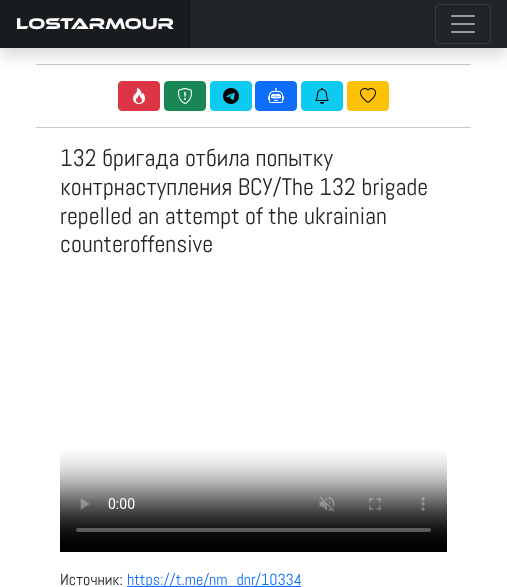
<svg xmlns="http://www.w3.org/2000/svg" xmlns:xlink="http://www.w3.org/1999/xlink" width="507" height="587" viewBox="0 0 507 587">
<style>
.cls-1{font:16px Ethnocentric;fill:#ffffff}
.cls-2{font:24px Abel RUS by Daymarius;fill:#212529}
.cls-3{font:16px Abel RUS by Daymarius;fill:#212529}
.cls-4{font:16px Abel RUS by Daymarius;fill:#0d6efd}
</style>
<rect width="100%" height="100%" fill="#ffffff"/>
<rect fill="#c8c9ca" x="36" y="64" width="435" height="1"/>
<rect fill="#000000" fill-opacity="0.15" filter="blur(8px)" x="0" y="8" width="507" height="48"/>
<rect fill="#212529" x="190" y="0" width="317" height="48"/>
<rect fill="#191c1f" x="0" y="0" width="189" height="48"/>
<rect fill="#131517" x="189" y="0" width="1" height="48"/>
<rect fill="none" stroke="#373b3e" x="435.5" y="4.5" width="55" height="39" rx="3.5"/>
<image xlink:href="image0.png" x="451" y="15" width="24" height="18"/>
<rect fill="#dc3545" stroke="#dc3545" x="118.5" y="81.5" width="41" height="29" rx="3.5"/>
<image xlink:href="image1.png" x="133" y="88" width="12" height="16"/>
<rect fill="#198754" stroke="#198754" x="164.5" y="81.5" width="41" height="29" rx="3.5"/>
<image xlink:href="image2.png" x="178" y="88" width="14" height="16"/>
<rect fill="#0dcaf0" stroke="#0dcaf0" x="210.5" y="81.5" width="41" height="29" rx="3.5"/>
<image xlink:href="image3.png" x="223" y="88" width="16" height="16"/>
<rect fill="#0d6efd" stroke="#0d6efd" x="255.5" y="81.5" width="41" height="29" rx="3.5"/>
<image xlink:href="image4.png" x="268" y="88" width="16" height="15"/>
<rect fill="#0dcaf0" stroke="#0dcaf0" x="301.5" y="81.5" width="41" height="29" rx="3.5"/>
<image xlink:href="image5.png" x="315" y="88" width="14" height="16"/>
<rect fill="#ffc107" stroke="#ffc107" x="347.5" y="81.5" width="41" height="29" rx="3.5"/>
<image xlink:href="image6.png" x="360" y="88" width="16" height="15"/>
<rect fill="#c8c9ca" x="36" y="127" width="435" height="1"/>
<image xlink:href="image7.png" x="60" y="451" width="387" height="101"/>
<rect fill="#0d6efd" x="127" y="586" width="174" height="1"/>
<text class="cls-1" x="16" y="29">LOSTARMOUR</text>
<text class="cls-2"><tspan x="60" y="166">132 бригада отбила попытку</tspan><tspan x="60" y="195">контрнаступления ВСУ/The 132 brigade</tspan><tspan x="60" y="224">repelled an attempt of the ukrainian</tspan><tspan x="60" y="252">counteroffensive</tspan></text>
<text class="cls-3" x="60" y="585">Источник:</text>
<text class="cls-4" x="127" y="585">https://t.me/nm_dnr/10334</text>
</svg>
